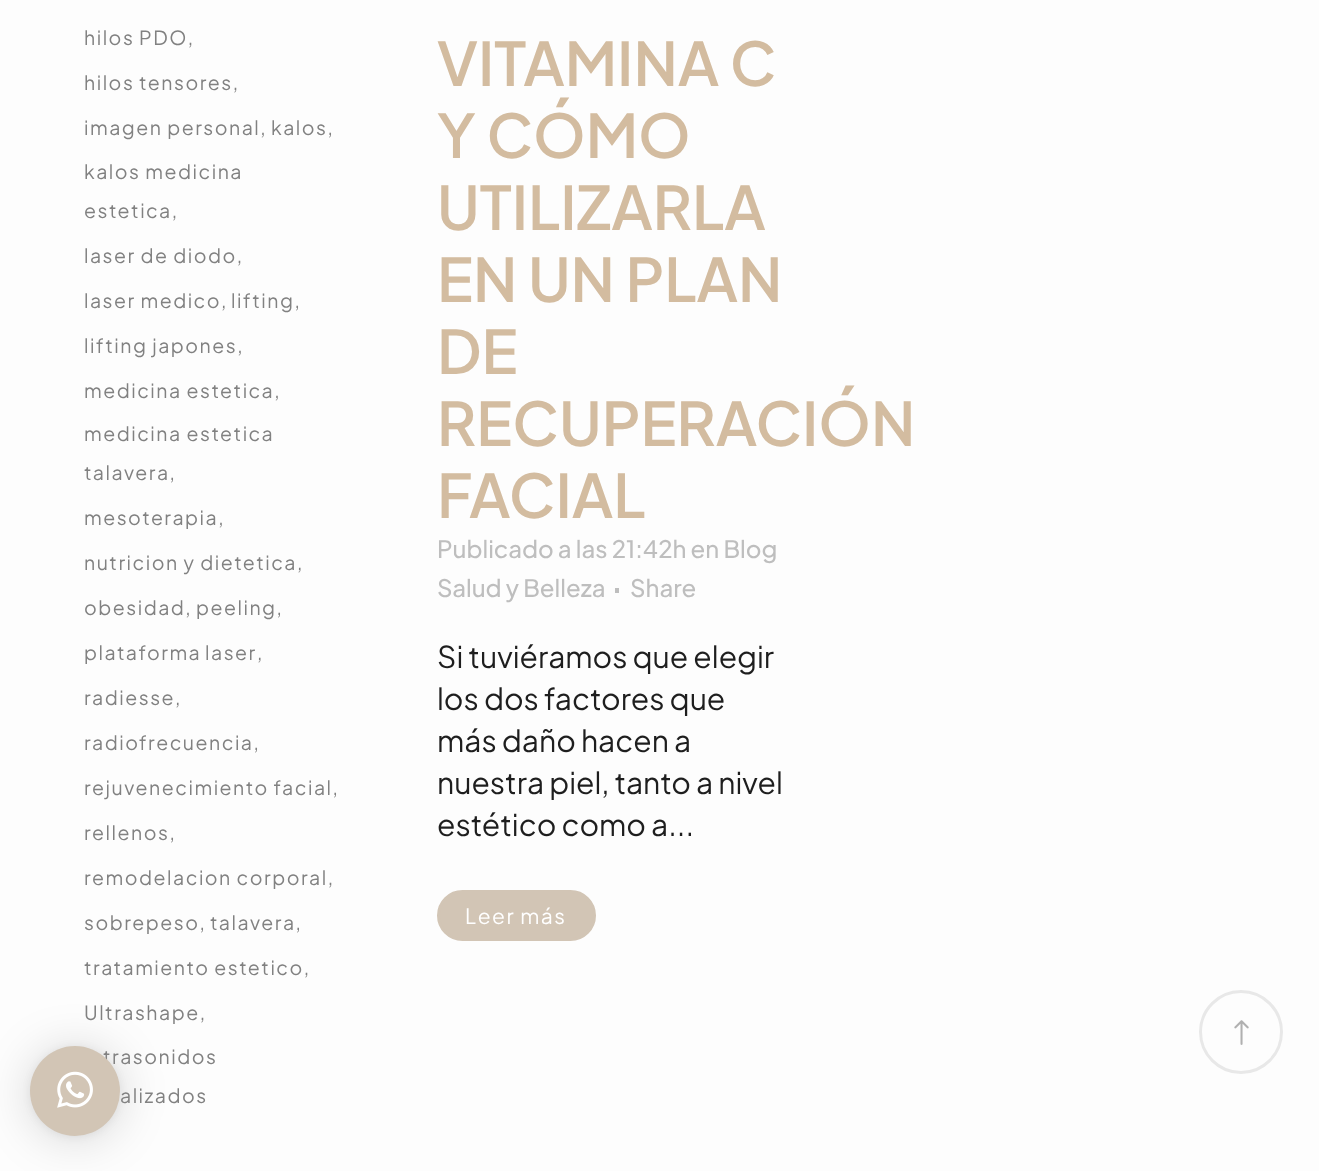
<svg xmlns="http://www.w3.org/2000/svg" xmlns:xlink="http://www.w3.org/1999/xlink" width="1319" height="1171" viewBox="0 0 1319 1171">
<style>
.cls-1{font:19.5px Plus Jakarta Sans;letter-spacing:1.5px;fill:#818181}
.cls-2{font:600 60px Plus Jakarta Sans;fill:#d3bca0}
.cls-3{font:500 24px Plus Jakarta Sans;fill:#bebebe}
.cls-4{font:30px Plus Jakarta Sans;fill:#1e1e1e}
.cls-5{font:21px Plus Jakarta Sans;letter-spacing:1.5px;fill:#ffffff}
</style>
<rect width="100%" height="100%" fill="#fdfdfd"/>
<rect fill="#bebebe" x="615" y="588" width="4" height="5"/>
<rect fill="#d2c5b5" stroke="#d2c5b5" stroke-width="3" x="438.5" y="891.5" width="156" height="48" rx="24"/>
<circle fill="none" stroke="#e8e8e8" stroke-width="3" cx="1241" cy="1032" r="40.5"/>
<image xlink:href="image0.png" x="1234" y="1020" width="15" height="25"/>
<rect fill="#000000" fill-opacity="0.16" filter="blur(24px)" x="30" y="1049" width="90" height="90" rx="45"/>
<rect fill="#000000" fill-opacity="0.06" filter="blur(4.5px)" x="30" y="1047" width="90" height="90" rx="45"/>
<text class="cls-1" x="84" y="45">hilos PDO,</text>
<text class="cls-1" x="84" y="90">hilos tensores,</text>
<text class="cls-1" x="84" y="135">imagen personal,</text>
<text class="cls-1" x="271" y="135">kalos,</text>
<text class="cls-1" x="84" y="179">kalos medicina</text>
<text class="cls-1" x="84" y="218">estetica,</text>
<text class="cls-1" x="84" y="263">laser de diodo,</text>
<text class="cls-1" x="84" y="308">laser medico,</text>
<text class="cls-1" x="231" y="308">lifting,</text>
<text class="cls-1" x="84" y="353">lifting japones,</text>
<text class="cls-1" x="84" y="398">medicina estetica,</text>
<text class="cls-1" x="84" y="441">medicina estetica</text>
<text class="cls-1" x="84" y="480">talavera,</text>
<text class="cls-1" x="84" y="525">mesoterapia,</text>
<text class="cls-1" x="84" y="570">nutricion y dietetica,</text>
<text class="cls-1" x="84" y="615">obesidad,</text>
<text class="cls-1" x="196" y="615">peeling,</text>
<text class="cls-1" x="84" y="660" word-spacing="-1">plataforma laser</text>
<text class="cls-1" x="257" y="660">,</text>
<text class="cls-1" x="84" y="705">radiesse,</text>
<text class="cls-1" x="84" y="750">radiofrecuencia,</text>
<text class="cls-1" x="84" y="795">rejuvenecimiento facial,</text>
<text class="cls-1" x="84" y="840">rellenos,</text>
<text class="cls-1" x="84" y="885">remodelacion corporal,</text>
<text class="cls-1" x="84" y="930">sobrepeso,</text>
<text class="cls-1" x="210" y="930">talavera,</text>
<text class="cls-1" x="84" y="975">tratamiento estetico,</text>
<text class="cls-1" x="84" y="1020">Ultrashape,</text>
<text class="cls-1" x="103" y="1064">trasonidos</text>
<text class="cls-1" x="120" y="1103">alizados</text>
<text class="cls-2"><tspan x="437" y="86">VITAMINA C</tspan><tspan x="437" y="158">Y CÓMO</tspan><tspan x="437" y="230">UTILIZARLA</tspan><tspan x="437" y="302">EN UN PLAN</tspan><tspan x="437" y="374">DE</tspan><tspan x="437" y="446">RECUPERACIÓN</tspan><tspan x="437" y="518">FACIAL</tspan></text>
<text class="cls-3"><tspan x="437" y="558">Publicado a las 21:42h en Blog</tspan><tspan x="437" y="597">Salud y Belleza</tspan></text>
<text class="cls-3" x="630" y="597">Share</text>
<text class="cls-4"><tspan x="437" y="668">Si tuviéramos que elegir</tspan><tspan x="437" y="710">los dos factores que</tspan><tspan x="437" y="752">más daño hacen a</tspan><tspan x="437" y="794">nuestra piel, tanto a nivel</tspan><tspan x="437" y="836">estético como a...</tspan></text>
<text class="cls-5" x="465" y="924">Leer más</text>
<circle fill="#d2c5b5" cx="75" cy="1091" r="45"/>
<image xlink:href="image1.png" x="57" y="1071" width="36" height="37"/>
</svg>
